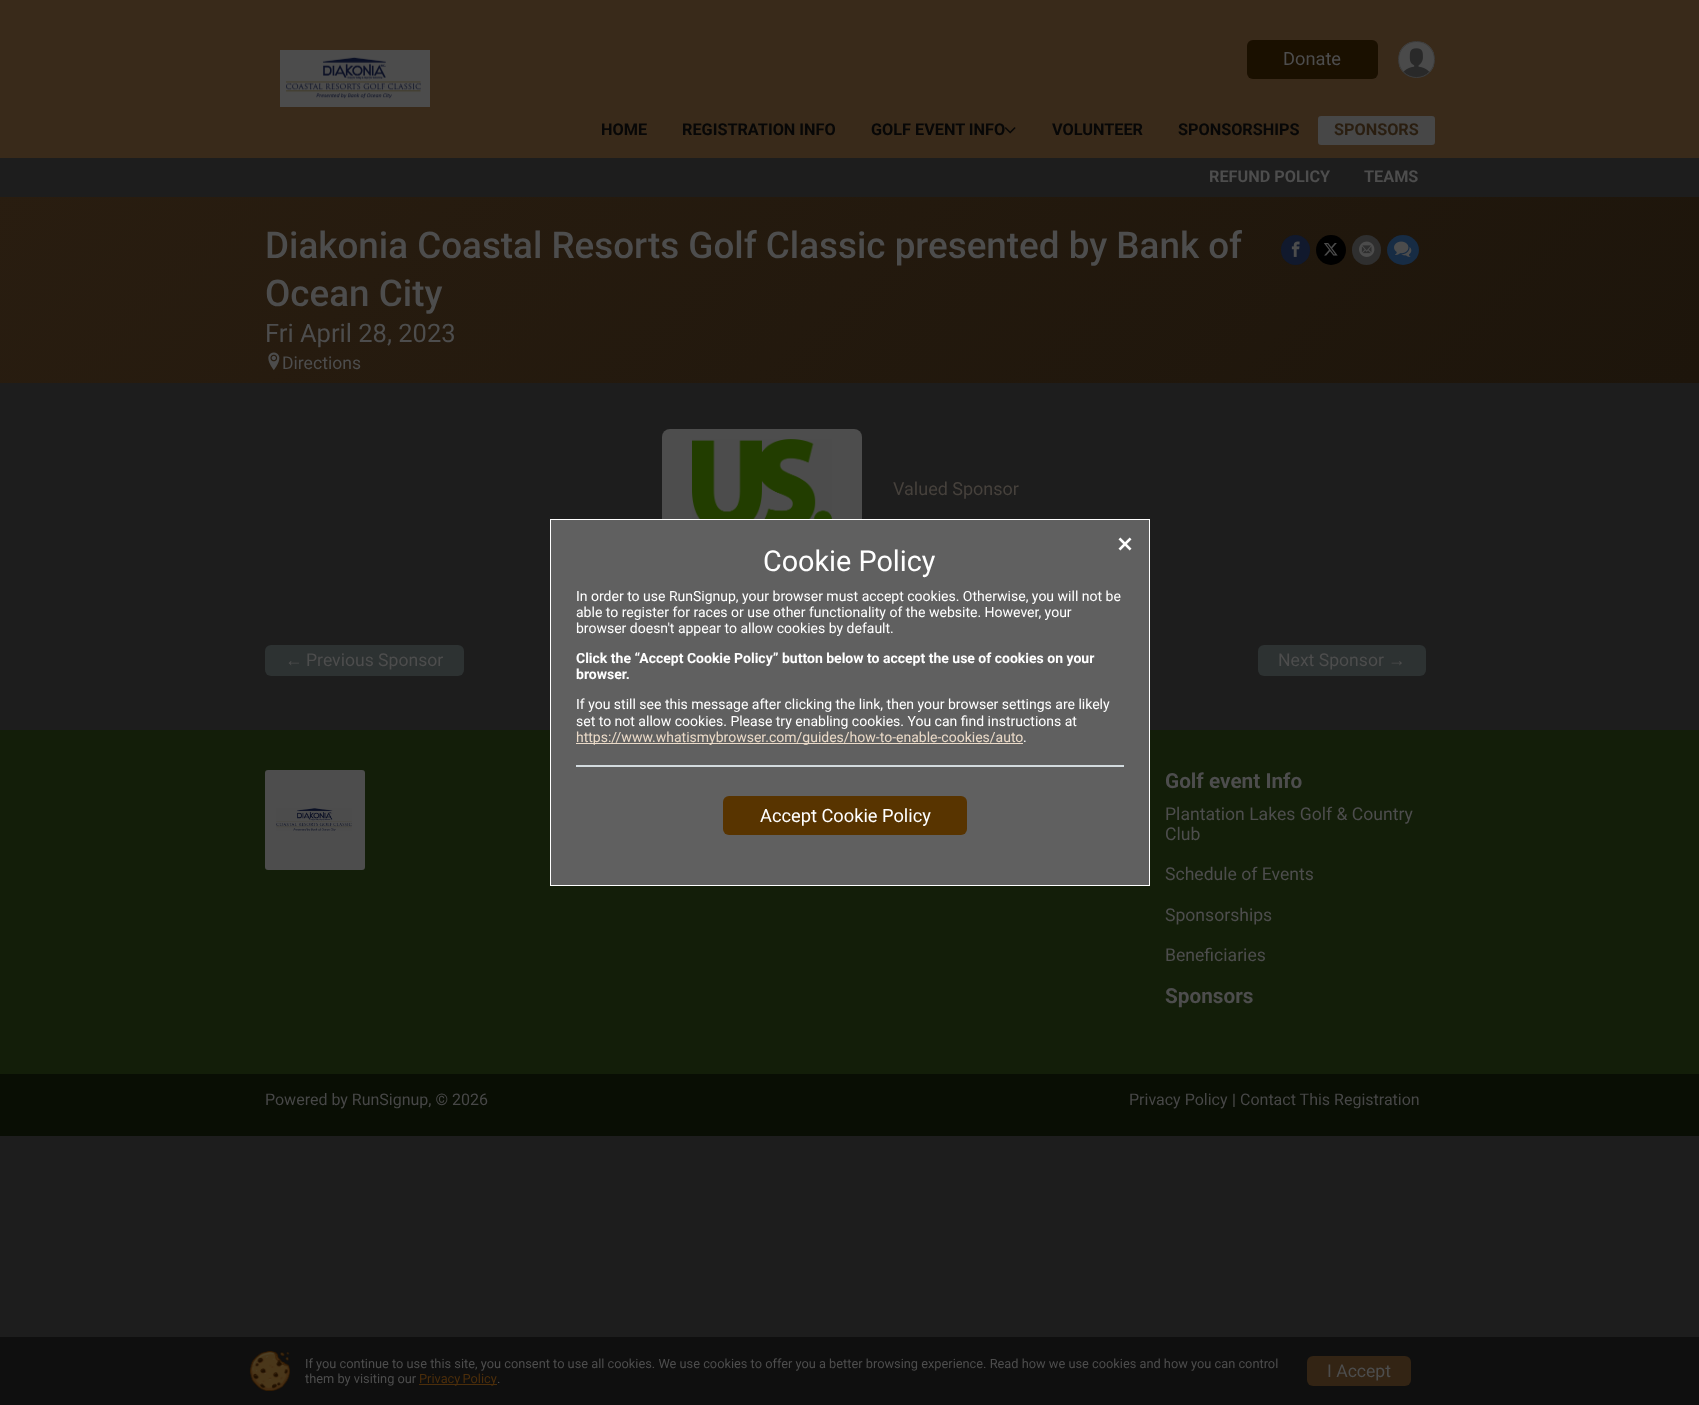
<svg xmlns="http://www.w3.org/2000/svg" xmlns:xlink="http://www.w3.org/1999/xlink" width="1699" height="1405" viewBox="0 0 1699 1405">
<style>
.cls-1{font:18.25px Roboto;fill:#4d4d4d}
.cls-2{font:bold 16.25px Roboto;fill:#070707}
.cls-3{font:bold 16.25px Roboto;fill:#2a1e10}
.cls-4{font:bold 16.25px Roboto;fill:#4d4d4d}
.cls-5{font:500 36.8px Roboto;fill:#4d4d4d}
.cls-6{font:25.5px Roboto;fill:#4d4d4d}
.cls-7{font:17.6px Roboto;fill:#4d4d4d}
.cls-8{font:18px Roboto;fill:#46413c}
.cls-9{font:17.6px Liberation Sans;fill:#4d4d4d}
.cls-10{font:bold 20.75px Roboto;fill:#4d4d4d}
.cls-11{font:16px Roboto;fill:#474747}
.cls-12{font:16px Roboto;fill:#4d4d4d}
.cls-13{font:28.75px Roboto;fill:#ffffff}
.cls-14{font:14px Roboto;fill:#ffffff}
.cls-15{font:bold 14px Roboto;fill:#ffffff}
.cls-16{font:14px Roboto;fill:#eadac8}
.cls-17{font:18.25px Roboto;fill:#ffffff}
.cls-18{font:12.8px Roboto;fill:#4d4d4d}
.cls-19{font:12.8px Roboto;fill:#4c2e0b}
</style>
<defs>
<linearGradient id="g1" gradientUnits="userSpaceOnUse" x1="1328" y1="754" x2="371" y2="-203"><stop offset="0" stop-color="#1d150b"/><stop offset="1" stop-color="#291d10"/></linearGradient>
</defs>
<rect width="100%" height="100%" fill="#1d1d1d"/>
<rect fill="#392a1a" x="0" y="0" width="1699" height="158"/>
<image xlink:href="image0.png" x="280" y="50" width="150" height="57"/>
<rect fill="#1a1000" x="1247" y="40" width="131" height="39" rx="6"/>
<image xlink:href="image1.png" x="1399" y="42" width="35" height="35"/>
<circle fill="none" stroke="#3d3d3d" cx="1416.5" cy="59.5" r="18"/>
<image xlink:href="image2.png" x="1004" y="127" width="12" height="7"/>
<rect fill="#474747" x="1318" y="116" width="117" height="29" rx="3"/>
<rect fill="url(#g1)" x="0" y="197" width="1699" height="186"/>
<image xlink:href="image3.png" x="268" y="352" width="12" height="18"/>
<rect fill="#11192d" x="1281" y="235" width="29" height="30" rx="14.5"/>
<image xlink:href="image4.png" x="1291" y="241" width="9" height="16"/>
<circle fill="#000000" cx="1331" cy="250" r="15"/>
<image xlink:href="image5.png" x="1324" y="243" width="14" height="13"/>
<rect fill="#2f2f2f" x="1352" y="235" width="29" height="30" rx="14.5"/>
<image xlink:href="image6.png" x="1359" y="241" width="16" height="16"/>
<ellipse fill="#172c44" cx="1403" cy="250" rx="16" ry="15"/>
<image xlink:href="image7.png" x="1394" y="241" width="18" height="16"/>
<rect fill="#4d4d4d" x="662" y="429" width="200" height="150" rx="8"/>
<image xlink:href="image8.png" x="692" y="439" width="140" height="80"/>
<rect fill="#2d3232" x="265" y="645" width="199" height="31" rx="6"/>
<rect fill="#2d3232" x="1258" y="645" width="168" height="31" rx="6"/>
<rect fill="#090e04" x="0" y="1074" width="1699" height="62"/>
<rect fill="#131e09" x="0" y="730" width="1699" height="344"/>
<rect fill="#4d4d4d" x="265" y="770" width="100" height="100" rx="3"/>
<image xlink:href="image9.png" x="276" y="808" width="76" height="23"/>
<rect fill="none" stroke="#ffffff" x="550.5" y="519.5" width="599" height="366"/>
<rect fill="#606060" x="551" y="520" width="598" height="365"/>
<image xlink:href="image10.png" x="1118" y="537" width="14" height="14"/>
<rect fill="#eadac8" x="576" y="743" width="447" height="1"/>
<rect fill="#d3dbdf" x="576" y="765" width="548" height="2"/>
<rect fill="#583400" x="723" y="796" width="244" height="39" rx="6"/>
<rect fill="#0f0f0f" x="0" y="1337" width="1699" height="68"/>
<image xlink:href="image11.png" x="249" y="1351" width="41" height="40"/>
<rect fill="#4c2e0b" x="419" y="1384" width="78" height="1"/>
<rect fill="#332414" x="1307" y="1356" width="104" height="30" rx="6"/>
<text class="cls-1" x="1283" y="65">Donate</text>
<text class="cls-2" x="601" y="135">HOME</text>
<text class="cls-2" x="682" y="135">REGISTRATION INFO</text>
<text class="cls-2" x="871" y="135">GOLF EVENT INFO</text>
<text class="cls-2" x="1052" y="135">VOLUNTEER</text>
<text class="cls-2" x="1178" y="135">SPONSORSHIPS</text>
<text class="cls-3" x="1334" y="135">SPONSORS</text>
<text class="cls-4" x="1209" y="182">REFUND POLICY</text>
<text class="cls-4" x="1364" y="182">TEAMS</text>
<text class="cls-5"><tspan x="265" y="258">Diakonia Coastal Resorts Golf Classic presented by Bank of</tspan><tspan x="265" y="306">Ocean City</tspan></text>
<text class="cls-6" x="265" y="342">Fri April 28, 2023</text>
<text class="cls-7" x="282" y="369">Directions</text>
<text class="cls-8" x="893" y="495">Valued Sponsor</text>
<text class="cls-9" x="285" y="666">←</text>
<text class="cls-7" x="306" y="666">Previous Sponsor</text>
<text class="cls-7" x="1278" y="666">Next Sponsor</text>
<text class="cls-9" x="1388" y="666">→</text>
<text class="cls-10" x="1165" y="788">Golf event Info</text>
<text class="cls-7"><tspan x="1165" y="820">Plantation Lakes Golf &amp; Country</tspan><tspan x="1165" y="840">Club</tspan></text>
<text class="cls-7" x="1165" y="880">Schedule of Events</text>
<text class="cls-7" x="1165" y="921">Sponsorships</text>
<text class="cls-7" x="1165" y="961">Beneficiaries</text>
<text class="cls-10" x="1165" y="1003">Sponsors</text>
<text class="cls-11" x="265" y="1105">Powered by RunSignup, © 2026</text>
<text class="cls-11" x="1129" y="1105">Privacy Policy</text>
<text class="cls-12" x="1232" y="1105">|</text>
<text class="cls-11" x="1240" y="1105">Contact This Registration</text>
<text class="cls-13" x="763" y="571">Cookie Policy</text>
<text class="cls-14"><tspan x="576" y="601">In order to use RunSignup, your browser must accept cookies. Otherwise, you will not be</tspan><tspan x="576" y="617">able to register for races or use other functionality of the website. However, your</tspan><tspan x="576" y="633">browser doesn't appear to allow cookies by default.</tspan></text>
<text class="cls-15"><tspan x="576" y="663">Click the “Accept Cookie Policy” button below to accept the use of cookies on your</tspan><tspan x="576" y="679">browser.</tspan></text>
<text class="cls-14"><tspan x="576" y="709">If you still see this message after clicking the link, then your browser settings are likely</tspan><tspan x="576" y="726">set to not allow cookies. Please try enabling cookies. You can find instructions at</tspan></text>
<text class="cls-16" x="576" y="742">https://www.whatismybrowser.com/guides/how-to-enable-cookies/auto</text>
<text class="cls-14" x="1023" y="742">.</text>
<text class="cls-17" x="760" y="822">Accept Cookie Policy</text>
<text class="cls-18"><tspan x="305" y="1368">If you continue to use this site, you consent to use all cookies. We use cookies to offer you a better browsing experience. Read how we use cookies and how you can control</tspan><tspan x="305" y="1383">them by visiting our</tspan></text>
<text class="cls-19" x="419" y="1383" word-spacing="-1">Privacy Policy</text>
<text class="cls-18" x="497" y="1383">.</text>
<text class="cls-7" x="1327" y="1377">I Accept</text>
</svg>
